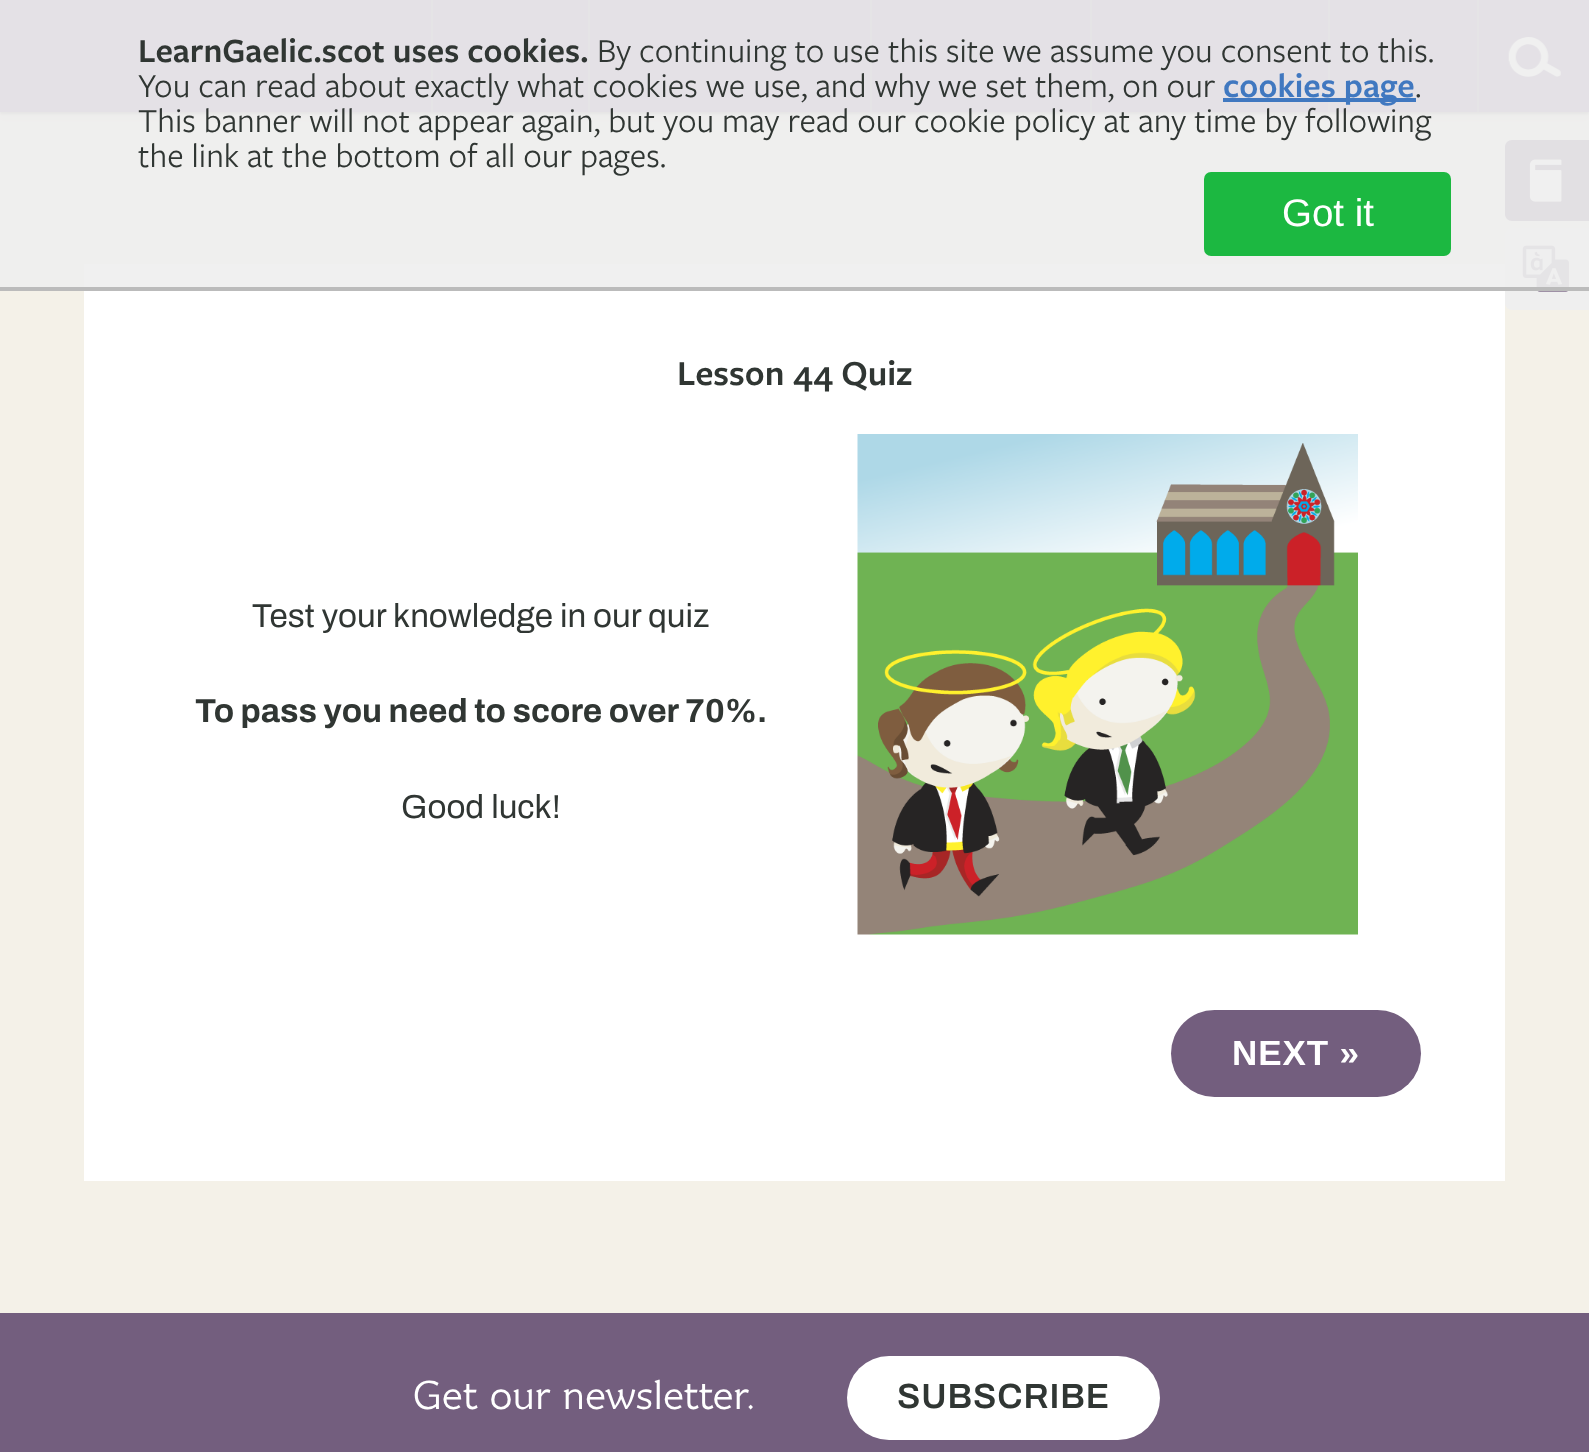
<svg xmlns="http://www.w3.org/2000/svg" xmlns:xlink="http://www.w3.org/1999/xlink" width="1589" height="1452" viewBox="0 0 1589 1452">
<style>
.cls-1{font:600 35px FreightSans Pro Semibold;fill:#303633}
.cls-2{font:35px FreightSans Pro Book;fill:#303633}
.cls-3{font:600 35px FreightSans Pro Semibold;fill:#4078c0}
.cls-4{font:38.5px Liberation Sans;fill:#ffffff}
.cls-5{font:600 36.5px FreightSans Pro Semibold;fill:#303633}
.cls-6{font:33.25px Archivo;fill:#303633}
.cls-7{font:bold 33.25px Archivo;fill:#303633}
.cls-8{font:bold 35px Liberation Sans;letter-spacing:0.9px;fill:#ffffff}
.cls-9{font:38.5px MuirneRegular;fill:#ffffff}
.cls-10{font:600 35px Archivo;letter-spacing:0.9px;fill:#303633}
</style>
<rect width="100%" height="100%" fill="#735e7e"/>
<rect fill="#f4f1e8" x="0" y="112" width="1589" height="1201"/>
<rect fill="#000000" fill-opacity="0.08" filter="blur(3.5px)" x="0" y="7" width="1589" height="112"/>
<rect fill="#000000" fill-opacity="0.32" filter="blur(1px)" x="0" y="2" width="1589" height="112"/>
<rect fill="#856b99" x="0" y="0" width="1589" height="112"/>
<rect fill="#92829a" x="431" y="0" width="2" height="112"/>
<rect fill="#92829a" x="588" y="0" width="2" height="112"/>
<rect fill="#92829a" x="870" y="0" width="2" height="112"/>
<rect fill="#92829a" x="1090" y="0" width="2" height="112"/>
<rect fill="#92829a" x="1328" y="0" width="2" height="112"/>
<rect fill="#92829a" x="1477" y="0" width="2" height="112"/>
<image xlink:href="image0.png" x="1508" y="37" width="53" height="40"/>
<path fill="#735e7e" d="M1512 140H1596V221H1512C1508 221 1505 218 1505 214V147C1505 143 1508 140 1512 140Z"/>
<image xlink:href="image1.png" x="1529" y="159" width="33" height="43"/>
<path fill="#efefef" d="M1512 228H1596V310H1512C1508 310 1505 307 1505 303V235C1505 231 1508 228 1512 228Z"/>
<image xlink:href="image2.png" x="1522" y="245" width="47" height="47"/>
<rect fill="#ffffff" x="84" y="264" width="1421" height="917"/>
<rect fill="#eeeeee" fill-opacity="0.9" x="0" y="0" width="1589" height="287"/>
<rect fill="#bbbbbb" x="0" y="287" width="1589" height="4"/>
<rect fill="#4078c0" x="1223" y="98" width="193" height="4"/>
<rect fill="#1cb841" x="1204" y="172" width="247" height="84" rx="7"/>
<image xlink:href="image3.png" x="857" y="434" width="501" height="501"/>
<rect fill="#735e7e" x="1171" y="1010" width="250" height="87" rx="43.5"/>
<rect fill="#ffffff" x="847" y="1356" width="313" height="84" rx="42"/>
<text class="cls-1" x="138" y="62">LearnGaelic.scot uses cookies.</text>
<text class="cls-2" x="597" y="62">By continuing to use this site we assume you consent to this.</text>
<text class="cls-2" x="138" y="97">You can read about exactly what cookies we use, and why we set them, on our</text>
<text class="cls-3" x="1223" y="97">cookies page</text>
<text class="cls-2" x="1415" y="97">.</text>
<text class="cls-2"><tspan x="138" y="132">This banner will not appear again, but you may read our cookie policy at any time by following</tspan><tspan x="138" y="167">the link at the bottom of all our pages.</tspan></text>
<text class="cls-4" x="1282" y="226">Got it</text>
<text class="cls-5" x="677" y="385">Lesson 44 Quiz</text>
<text class="cls-6" x="252" y="627">Test your knowledge in our quiz</text>
<text class="cls-7" x="195" y="722">To pass you need to score over 70%.</text>
<text class="cls-6" x="401" y="818">Good luck!</text>
<text class="cls-8" x="1232" y="1065">NEXT »</text>
<text class="cls-9" x="413" y="1409">Get our newsletter.</text>
<text class="cls-10" x="897" y="1408">SUBSCRIBE</text>
</svg>
